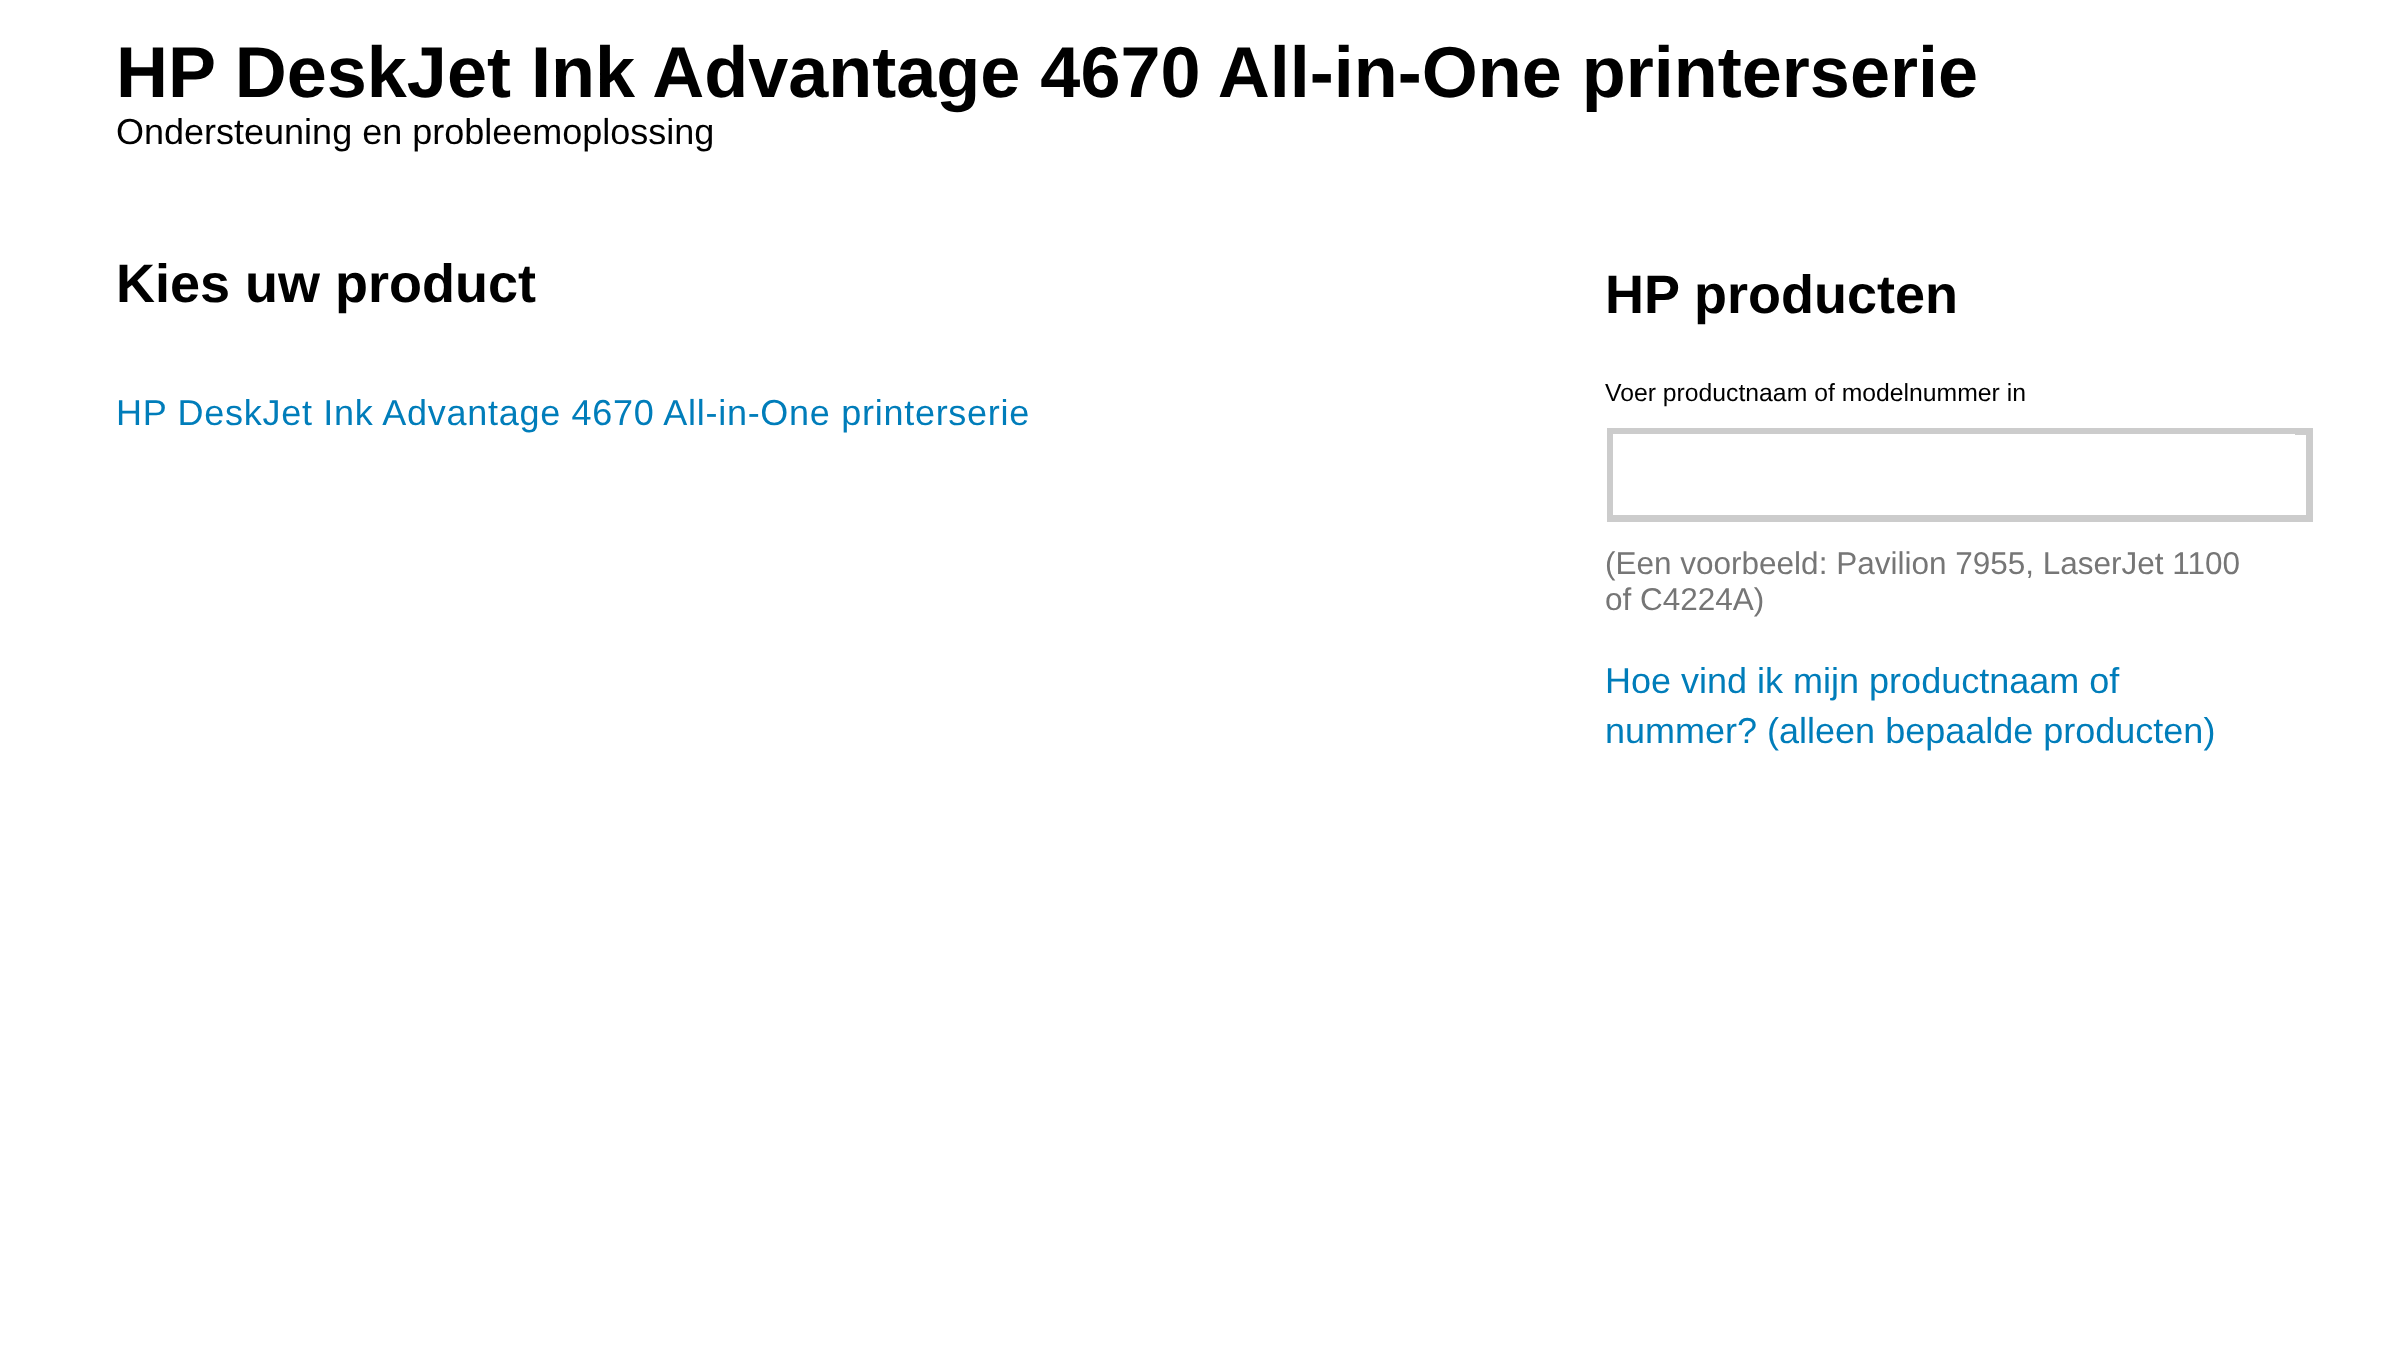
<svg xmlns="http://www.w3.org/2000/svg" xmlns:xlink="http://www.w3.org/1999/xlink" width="2391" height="1353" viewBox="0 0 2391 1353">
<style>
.cls-1{font:bold 72px Liberation Sans;fill:#000000}
.cls-2{font:36px Liberation Sans;fill:#000000}
.cls-3{font:bold 54px Liberation Sans;fill:#000000}
.cls-4{font:36px Liberation Sans;letter-spacing:0.72px;fill:#007dba}
.cls-5{font:24.75px Liberation Sans;fill:#000000}
.cls-6{font:31.5px Liberation Sans;fill:#767676}
.cls-7{font:36px Liberation Sans;fill:#007dba}
</style>
<rect width="100%" height="100%" fill="#ffffff"/>
<rect fill="none" stroke="#cccccc" stroke-width="7" x="1610.5" y="431.5" width="699" height="87"/>
<rect fill="#ffffff" x="1613" y="434" width="626" height="81"/>
<rect fill="#ffffff" x="2239" y="434" width="56" height="1"/>
<text class="cls-1" x="116" y="97">HP DeskJet Ink Advantage 4670 All-in-One printerserie</text>
<text class="cls-2" x="116" y="144">Ondersteuning en probleemoplossing</text>
<text class="cls-3" x="116" y="302">Kies uw product</text>
<text class="cls-4" x="116" y="425">HP DeskJet Ink Advantage 4670 All-in-One printerserie</text>
<text class="cls-3" x="1605" y="313">HP producten</text>
<text class="cls-5" x="1605" y="401">Voer productnaam of modelnummer in</text>
<text class="cls-6"><tspan x="1605" y="574">(Een voorbeeld: Pavilion 7955, LaserJet 1100</tspan><tspan x="1605" y="610">of C4224A)</tspan></text>
<text class="cls-7"><tspan x="1605" y="693">Hoe vind ik mijn productnaam of</tspan><tspan x="1605" y="743">nummer? (alleen bepaalde producten)</tspan></text>
</svg>
